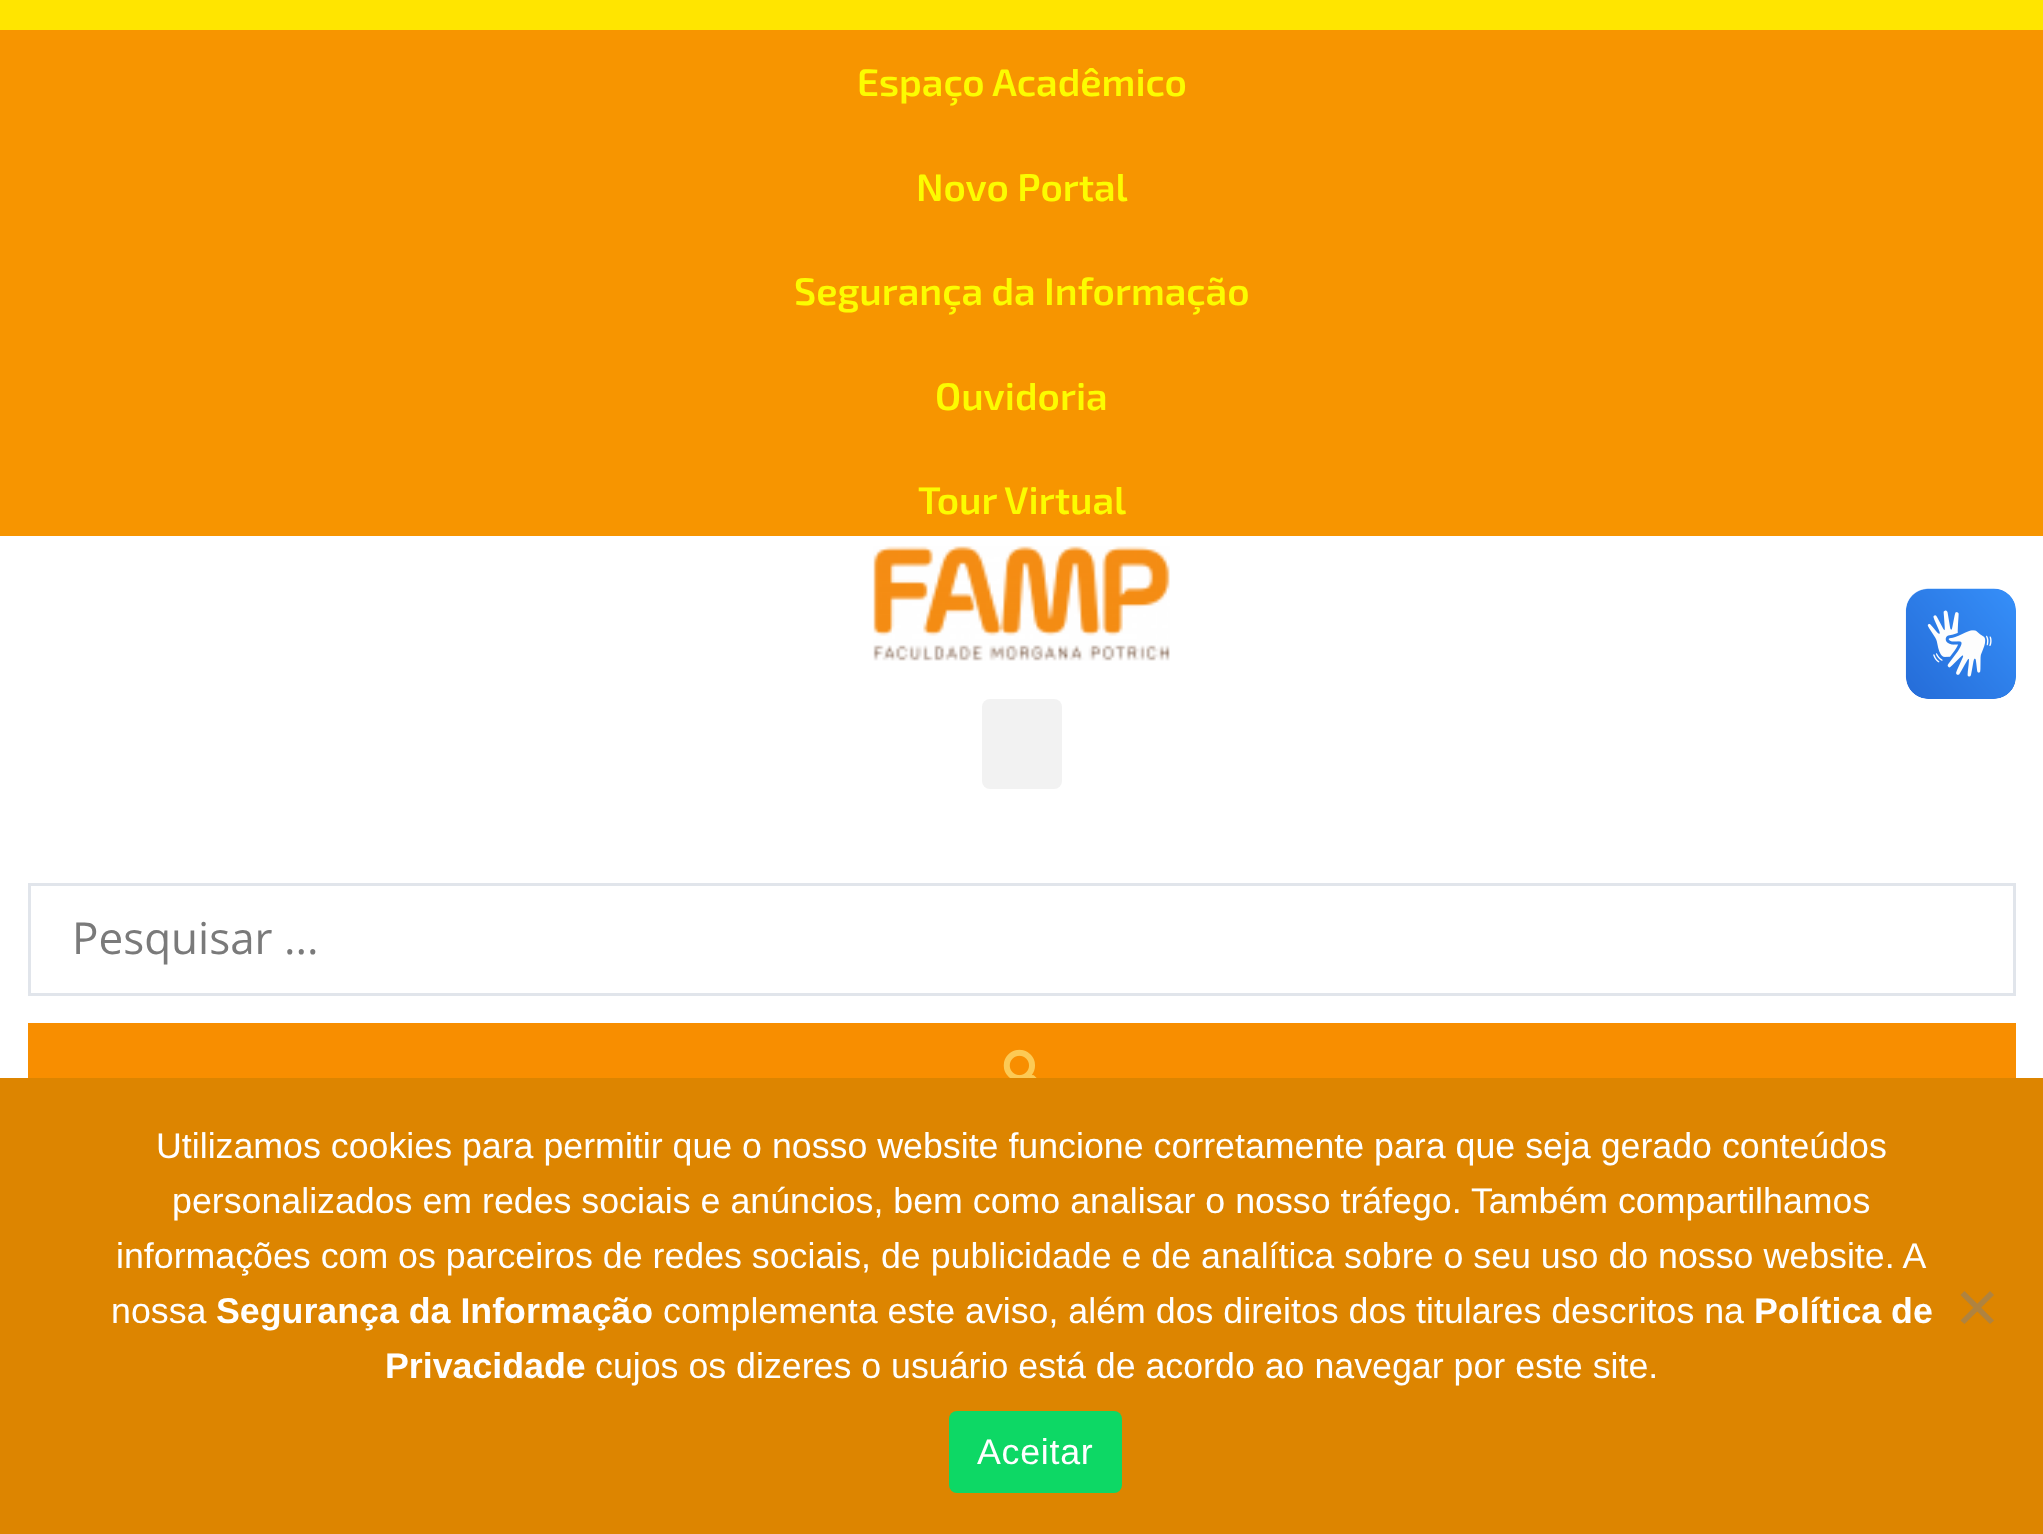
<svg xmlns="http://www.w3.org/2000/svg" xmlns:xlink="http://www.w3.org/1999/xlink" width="2043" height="1534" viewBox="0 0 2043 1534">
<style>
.cls-1{font:600 38.5px 'Exo 2';fill:#fcfc00}
.cls-2{font:44px Open Sans;fill:#7a7a7a}
.cls-3{font:35.75px Liberation Sans;fill:#ffffff}
.cls-4{font:bold 35.75px Liberation Sans;fill:#ffffff}
.cls-5{font:35.75px Liberation Sans;letter-spacing:0.75px;fill:#ffffff}
</style>
<rect width="100%" height="100%" fill="#ffffff"/>
<rect fill="#f79500" x="0" y="30" width="2043" height="506"/>
<rect fill="#ffe500" x="0" y="0" width="2043" height="30"/>
<image xlink:href="image0.png" x="873" y="546" width="297" height="115"/>
<rect fill="#f2f2f2" x="982" y="699" width="80" height="90" rx="8"/>
<rect fill="none" stroke="#e1e5eb" stroke-width="3" x="29.5" y="884.5" width="1985" height="110"/>
<rect fill="#f88e00" x="28" y="1023" width="1988" height="55"/>
<image xlink:href="image1.png" x="1003" y="1049" width="34" height="29"/>
<image xlink:href="image2.png" x="1905" y="588" width="111" height="111"/>
<image xlink:href="image3.png" x="1906" y="589" width="110" height="110"/>
<rect fill="#dd8500" x="0" y="1078" width="2043" height="456"/>
<path fill="#af8340" d="M1990 1291L1994 1295L1964.5 1324L1960.5 1320.5Z"/>
<path fill="#af8340" d="M1960.5 1295L1964.5 1291L1994 1320.5L1990 1324Z"/>
<rect fill="#0dd865" x="949" y="1411" width="173" height="82" rx="8"/>
<text class="cls-1" x="857" y="96">Espaço Acadêmico</text>
<text class="cls-1" x="916" y="201">Novo Portal</text>
<text class="cls-1" x="794" y="305">Segurança da Informação</text>
<text class="cls-1" x="935" y="410">Ouvidoria</text>
<text class="cls-1" x="918" y="514">Tour Virtual</text>
<text class="cls-2" x="72" y="954">Pesquisar ...</text>
<text class="cls-3" x="156" y="1158">Utilizamos cookies para permitir que o nosso website funcione corretamente para que seja gerado conteúdos</text>
<text class="cls-3" x="172" y="1213">personalizados em redes sociais e anúncios, bem como analisar o nosso tráfego. Também compartilhamos</text>
<text class="cls-3" x="116" y="1268">informações com os parceiros de redes sociais, de publicidade e de analítica sobre o seu uso do nosso website. A</text>
<text class="cls-3" x="111" y="1323">nossa</text>
<text class="cls-4" x="216" y="1323">Segurança da Informação</text>
<text class="cls-3" x="663" y="1323">complementa este aviso, além dos direitos dos titulares descritos na</text>
<text class="cls-4" x="1754" y="1323">Política de</text>
<text class="cls-4" x="385" y="1378">Privacidade</text>
<text class="cls-3" x="595" y="1378">cujos os dizeres o usuário está de acordo ao navegar por este site.</text>
<text class="cls-5" x="977" y="1464">Aceitar</text>
</svg>
